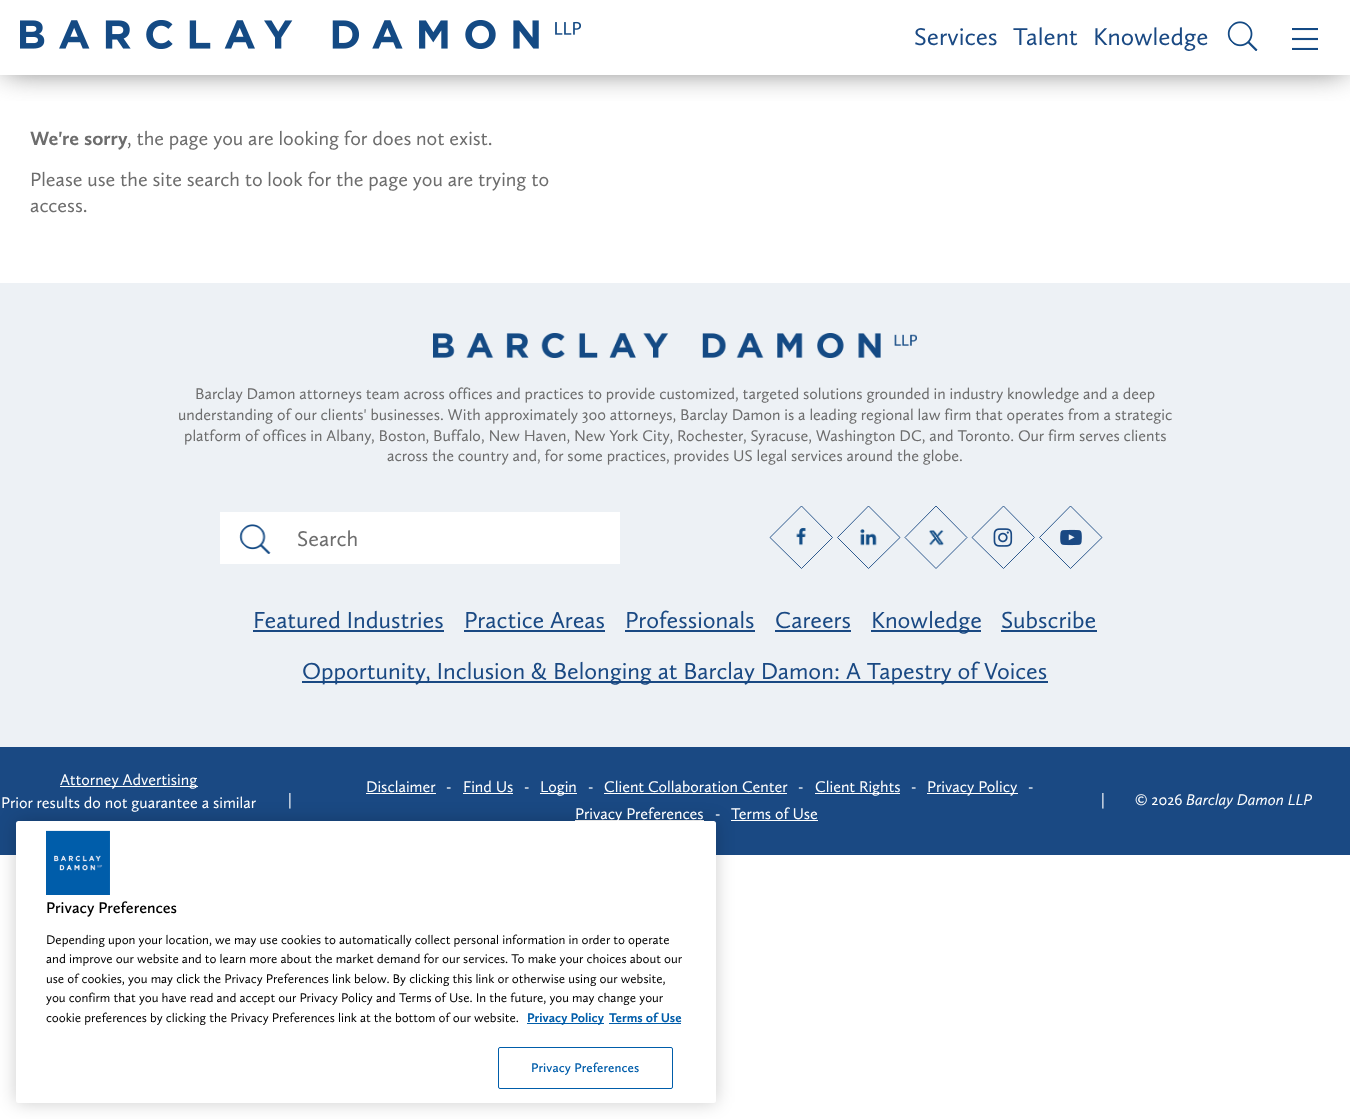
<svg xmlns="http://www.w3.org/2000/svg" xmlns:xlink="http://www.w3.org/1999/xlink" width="1350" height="1119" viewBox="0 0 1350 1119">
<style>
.cls-1{font:25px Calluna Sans;fill:#1a4983}
.cls-2{font:bold 20px Calluna Sans;fill:#6d6d6d}
.cls-3{font:20px Calluna Sans;fill:#6d6d6d}
.cls-4{font:16px Calluna Sans;fill:#6d6d6d}
.cls-5{font:22px Calluna Sans;fill:#6d6d6d}
.cls-6{font:24px Calluna Sans;fill:#1a4983}
.cls-7{font:16px Calluna Sans;fill:#ffffff}
.cls-8{font:italic 16px Calluna Sans;fill:#ffffff}
.cls-9{font:600 16px Calluna Sans;fill:#000000}
.cls-10{font:13px Calluna Sans;fill:#000000}
.cls-11{font:bold 13px Calluna Sans;fill:#005daa}
.cls-12{font:600 13px Calluna Sans;letter-spacing:0.1px;fill:#005daa}
</style>
<defs>
<clipPath id="clip1"><rect x="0" y="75" width="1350" height="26"/></clipPath>
</defs>
<rect width="100%" height="100%" fill="#ffffff"/>
<g clip-path="url(#clip1)">
<rect fill="#656565" filter="blur(15px)" x="5" y="5" width="1340" height="65"/>
</g>
<image xlink:href="image0.png" x="20" y="20" width="561" height="29"/>
<image xlink:href="image1.png" x="1227" y="21" width="31" height="30"/>
<image xlink:href="image2.png" x="1292" y="28" width="26" height="22"/>
<rect fill="#edf1f5" x="0" y="283" width="1350" height="464"/>
<image xlink:href="image3.png" x="433" y="333" width="484" height="25"/>
<rect fill="#ffffff" x="220" y="512" width="400" height="52"/>
<image xlink:href="image4.png" x="239" y="524" width="32" height="30"/>
<image xlink:href="image5.png" x="796" y="527" width="10" height="19"/>
<path fill="none" stroke="#1a4983" stroke-width="0.9" d="M801.5 506L832.5 537.5L801.5 568.5L770 537.5Z"/>
<image xlink:href="image6.png" x="860" y="529" width="17" height="17"/>
<path fill="none" stroke="#1a4983" stroke-width="0.9" d="M868.5 506L900 537.5L868.5 568.5L837.5 537.5Z"/>
<image xlink:href="image7.png" x="929" y="530" width="15" height="16"/>
<path fill="none" stroke="#1a4983" stroke-width="0.9" d="M936 506L967 537.5L936 568.5L905 537.5Z"/>
<image xlink:href="image8.png" x="993" y="528" width="20" height="19"/>
<path fill="none" stroke="#1a4983" stroke-width="0.9" d="M1003.5 506L1034.5 537.5L1003.5 568.5L972 537.5Z"/>
<image xlink:href="image9.png" x="1060" y="529" width="22" height="17"/>
<path fill="none" stroke="#1a4983" stroke-width="0.9" d="M1070.5 506L1102 537.5L1070.5 568.5L1039.5 537.5Z"/>
<rect fill="#1a4983" x="253" y="630" width="191" height="2"/>
<rect fill="#1a4983" x="464" y="630" width="141" height="2"/>
<rect fill="#1a4983" x="625" y="630" width="130" height="2"/>
<rect fill="#1a4983" x="775" y="630" width="76" height="2"/>
<rect fill="#1a4983" x="871" y="630" width="110" height="2"/>
<rect fill="#1a4983" x="1001" y="630" width="96" height="2"/>
<rect fill="#1a4983" x="302" y="681" width="746" height="2"/>
<rect fill="#1a4983" x="0" y="747" width="1350" height="108"/>
<rect fill="#ffffff" x="60" y="786" width="138" height="1"/>
<rect fill="#ffffff" x="366" y="793" width="70" height="1"/>
<rect fill="#ffffff" x="463" y="793" width="50" height="1"/>
<rect fill="#ffffff" x="540" y="793" width="37" height="1"/>
<rect fill="#ffffff" x="604" y="793" width="183" height="1"/>
<rect fill="#ffffff" x="815" y="793" width="85" height="1"/>
<rect fill="#ffffff" x="927" y="793" width="91" height="1"/>
<rect fill="#ffffff" x="575" y="820" width="129" height="1"/>
<rect fill="#ffffff" x="731" y="820" width="87" height="1"/>
<rect fill="#000000" fill-opacity="0.2" filter="blur(9px)" x="16" y="821" width="700" height="282" rx="2.5"/>
<rect fill="#ffffff" x="16" y="821" width="700" height="282" rx="2.5"/>
<image xlink:href="image10.png" x="46" y="830" width="64" height="65"/>
<rect fill="#005daa" x="527" y="1023" width="77" height="1"/>
<rect fill="#005daa" x="609" y="1023" width="72" height="1"/>
<rect fill="none" stroke="#005daa" x="498.5" y="1047.5" width="174" height="41" rx="1.5"/>
<text class="cls-1" x="914" y="45">Services</text>
<text class="cls-1" x="1013" y="45">Talent</text>
<text class="cls-1" x="1093" y="45">Knowledge</text>
<text class="cls-2" x="30" y="145">We're sorry</text>
<text class="cls-3" x="127" y="145">, the page you are looking for does not exist.</text>
<text class="cls-3"><tspan x="30" y="186">Please use the site search to look for the page you are trying to</tspan><tspan x="30" y="212">access.</tspan></text>
<text class="cls-4" x="195" y="399">Barclay Damon attorneys team across offices and practices to provide customized, targeted solutions grounded in industry knowledge and a deep</text>
<text class="cls-4" x="178" y="420">understanding of our clients' businesses. With approximately 300 attorneys, Barclay Damon is a leading regional law firm that operates from a strategic</text>
<text class="cls-4" x="184" y="441">platform of offices in Albany, Boston, Buffalo, New Haven, New York City, Rochester, Syracuse, Washington DC, and Toronto. Our firm serves clients</text>
<text class="cls-4" x="387" y="461">across the country and, for some practices, provides US legal services around the globe.</text>
<text class="cls-5" x="297" y="546">Search</text>
<text class="cls-6" x="253" y="628">Featured Industries</text>
<text class="cls-6" x="464" y="628">Practice Areas</text>
<text class="cls-6" x="625" y="628">Professionals</text>
<text class="cls-6" x="775" y="628">Careers</text>
<text class="cls-6" x="871" y="628">Knowledge</text>
<text class="cls-6" x="1001" y="628">Subscribe</text>
<text class="cls-6" x="302" y="679">Opportunity, Inclusion &amp; Belonging at Barclay Damon: A Tapestry of Voices</text>
<text class="cls-7" x="60" y="785">Attorney Advertising</text>
<text class="cls-7" x="1" y="808">Prior results do not guarantee a similar</text>
<text class="cls-7" x="288" y="805">|</text>
<text class="cls-7" x="366" y="792">Disclaimer</text>
<text class="cls-7" x="446" y="792">-</text>
<text class="cls-7" x="463" y="792">Find Us</text>
<text class="cls-7" x="524" y="792">-</text>
<text class="cls-7" x="540" y="792">Login</text>
<text class="cls-7" x="588" y="792">-</text>
<text class="cls-7" x="604" y="792">Client Collaboration Center</text>
<text class="cls-7" x="798" y="792">-</text>
<text class="cls-7" x="815" y="792">Client Rights</text>
<text class="cls-7" x="911" y="792">-</text>
<text class="cls-7" x="927" y="792">Privacy Policy</text>
<text class="cls-7" x="1028" y="792">-</text>
<text class="cls-7" x="575" y="819">Privacy Preferences</text>
<text class="cls-7" x="715" y="819">-</text>
<text class="cls-7" x="731" y="819">Terms of Use</text>
<text class="cls-7" x="1101" y="805">|</text>
<text class="cls-7" x="1135" y="805">© 2026</text>
<text class="cls-8" x="1186" y="805">Barclay Damon LLP</text>
<text class="cls-9" x="46" y="913">Privacy Preferences</text>
<text class="cls-10"><tspan x="46" y="944">Depending upon your location, we may use cookies to automatically collect personal information in order to operate</tspan><tspan x="46" y="963">and improve our website and to learn more about the market demand for our services. To make your choices about our</tspan><tspan x="46" y="983">use of cookies, you may click the Privacy Preferences link below. By clicking this link or otherwise using our website,</tspan><tspan x="46" y="1002">you confirm that you have read and accept our Privacy Policy and Terms of Use. In the future, you may change your</tspan><tspan x="46" y="1022">cookie preferences by clicking the Privacy Preferences link at the bottom of our website.</tspan></text>
<text class="cls-11" x="527" y="1022">Privacy Policy</text>
<text class="cls-11" x="609" y="1022">Terms of Use</text>
<text class="cls-12" x="531" y="1072">Privacy Preferences</text>
</svg>
